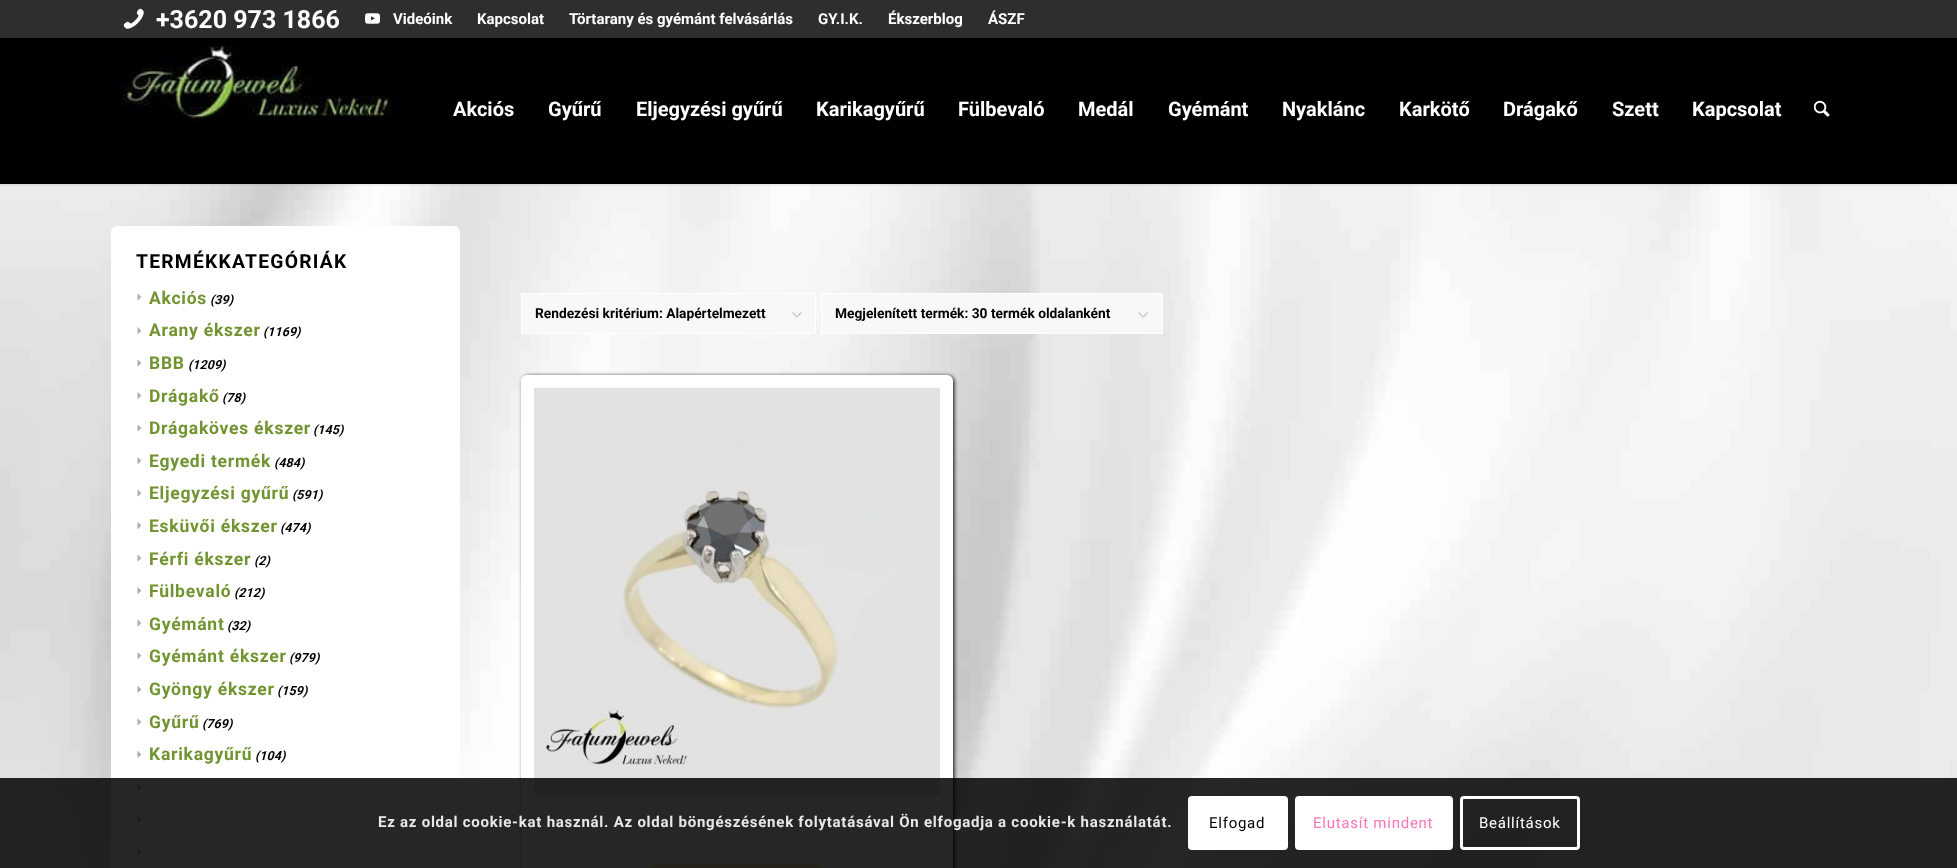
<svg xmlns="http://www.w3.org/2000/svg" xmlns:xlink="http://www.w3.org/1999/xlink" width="1957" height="868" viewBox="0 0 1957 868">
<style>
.cls-1{font:bold 25px Roboto;fill:#ffffff}
.cls-2{font:bold 15px Roboto;fill:#ffffff}
.cls-3{font:bold 20px Roboto;fill:#ffffff}
.cls-4{font:bold 19.25px Roboto;letter-spacing:1.25px;fill:#000000}
.cls-5{font:bold 17.5px Roboto;letter-spacing:0.75px;fill:#719430}
.cls-6{font:italic bold 12.5px Roboto;fill:#000000}
.cls-7{font:bold 13.75px Roboto;fill:#000000}
.cls-8{font:bold 15px Roboto;letter-spacing:0.75px;fill:#e8e8e8}
.cls-9{font:15px Roboto;letter-spacing:0.75px;fill:#000000}
.cls-10{font:15px Roboto;letter-spacing:0.75px;fill:#ff75b5}
.cls-11{font:15px Roboto;letter-spacing:0.75px;fill:#ffffff}
</style>
<rect width="100%" height="100%" fill="#ffffff"/>
<image xlink:href="image4.png" x="0" y="184" width="1957" height="684"/>
<rect fill="#000000" fill-opacity="0.1" filter="blur(1px)" x="-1" y="-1" width="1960" height="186"/>
<rect fill="#2e2e2e" x="0" y="0" width="1957" height="38"/>
<image xlink:href="image0.png" x="123" y="8" width="21" height="21"/>
<image xlink:href="image1.png" x="365" y="13" width="15" height="11"/>
<rect fill="#000000" x="0" y="38" width="1957" height="146"/>
<image xlink:href="image2.png" x="112" y="46" width="280" height="76"/>
<image xlink:href="image3.png" x="1814" y="100" width="16" height="17"/>
<rect fill="#ffffff" x="111" y="226" width="349" height="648" rx="6"/>
<image xlink:href="image5.png" x="137" y="293" width="5" height="7"/>
<image xlink:href="image6.png" x="137" y="327" width="5" height="7"/>
<image xlink:href="image7.png" x="137" y="360" width="5" height="7"/>
<image xlink:href="image6.png" x="137" y="392" width="5" height="7"/>
<image xlink:href="image7.png" x="137" y="425" width="5" height="7"/>
<image xlink:href="image6.png" x="137" y="457" width="5" height="7"/>
<image xlink:href="image7.png" x="137" y="490" width="5" height="7"/>
<image xlink:href="image6.png" x="137" y="522" width="5" height="7"/>
<image xlink:href="image7.png" x="137" y="555" width="5" height="7"/>
<image xlink:href="image6.png" x="137" y="587" width="5" height="7"/>
<image xlink:href="image7.png" x="137" y="620" width="5" height="7"/>
<image xlink:href="image6.png" x="137" y="652" width="5" height="7"/>
<image xlink:href="image8.png" x="137" y="686" width="5" height="7"/>
<image xlink:href="image5.png" x="137" y="718" width="5" height="7"/>
<image xlink:href="image8.png" x="137" y="751" width="5" height="7"/>
<image xlink:href="image5.png" x="137" y="783" width="5" height="7"/>
<image xlink:href="image8.png" x="137" y="816" width="5" height="7"/>
<image xlink:href="image5.png" x="137" y="848" width="5" height="7"/>
<rect fill="#f8f8f8" x="522" y="294" width="293" height="39"/>
<image xlink:href="image9.png" x="792" y="312" width="10" height="6"/>
<rect fill="none" stroke="#ffffff" x="521.5" y="293.5" width="294" height="40"/>
<rect fill="#f8f8f8" x="822" y="294" width="340" height="39"/>
<image xlink:href="image10.png" x="1138" y="312" width="10" height="6"/>
<rect fill="none" stroke="#ffffff" x="821.5" y="293.5" width="341" height="40"/>
<rect fill="#000000" filter="blur(2px)" x="523" y="376" width="431" height="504" rx="6"/>
<rect fill="#ffffff" x="521" y="375" width="432" height="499" rx="6"/>
<image xlink:href="image11.png" x="534" y="387" width="406" height="408"/>
<rect fill="#f5e1ae" x="648" y="864" width="178" height="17" rx="13"/>
<rect fill="#000000" fill-opacity="0.85" x="0" y="778" width="1957" height="90"/>
<rect fill="#ffffff" x="1188" y="796" width="100" height="54" rx="4"/>
<rect fill="#ffffff" stroke="#ffffff" stroke-width="3" x="1296.5" y="797.5" width="155" height="51" rx="2.5"/>
<rect fill="none" stroke="#ffffff" stroke-width="3" x="1461.5" y="797.5" width="117" height="51" rx="2.5"/>
<text class="cls-1" x="156" y="28">+3620 973 1866</text>
<text class="cls-2" x="393" y="24">Videóink</text>
<text class="cls-2" x="477" y="24">Kapcsolat</text>
<text class="cls-2" x="569" y="24">Törtarany és gyémánt felvásárlás</text>
<text class="cls-2" x="818" y="24">GY.I.K.</text>
<text class="cls-2" x="888" y="24">Ékszerblog</text>
<text class="cls-2" x="988" y="24">ÁSZF</text>
<text class="cls-3" x="453" y="116">Akciós</text>
<text class="cls-3" x="548" y="116">Gyűrű</text>
<text class="cls-3" x="636" y="116">Eljegyzési gyűrű</text>
<text class="cls-3" x="816" y="116">Karikagyűrű</text>
<text class="cls-3" x="958" y="116">Fülbevaló</text>
<text class="cls-3" x="1078" y="116">Medál</text>
<text class="cls-3" x="1168" y="116">Gyémánt</text>
<text class="cls-3" x="1282" y="116">Nyaklánc</text>
<text class="cls-3" x="1399" y="116">Karkötő</text>
<text class="cls-3" x="1503" y="116">Drágakő</text>
<text class="cls-3" x="1612" y="116">Szett</text>
<text class="cls-3" x="1692" y="116">Kapcsolat</text>
<text class="cls-4" x="136" y="268">TERMÉKKATEGÓRIÁK</text>
<text class="cls-5" x="149" y="304">Akciós</text>
<text class="cls-6" x="210" y="304">(39)</text>
<text class="cls-5" x="149" y="336">Arany ékszer</text>
<text class="cls-6" x="263" y="336">(1169)</text>
<text class="cls-5" x="149" y="369">BBB</text>
<text class="cls-6" x="188" y="369">(1209)</text>
<text class="cls-5" x="149" y="402">Drágakő</text>
<text class="cls-6" x="222" y="402">(78)</text>
<text class="cls-5" x="149" y="434">Drágaköves ékszer</text>
<text class="cls-6" x="313" y="434">(145)</text>
<text class="cls-5" x="149" y="467">Egyedi termék</text>
<text class="cls-6" x="274" y="467">(484)</text>
<text class="cls-5" x="149" y="499">Eljegyzési gyűrű</text>
<text class="cls-6" x="292" y="499">(591)</text>
<text class="cls-5" x="149" y="532">Esküvői ékszer</text>
<text class="cls-6" x="280" y="532">(474)</text>
<text class="cls-5" x="149" y="565">Férfi ékszer</text>
<text class="cls-6" x="254" y="565">(2)</text>
<text class="cls-5" x="149" y="597">Fülbevaló</text>
<text class="cls-6" x="234" y="597">(212)</text>
<text class="cls-5" x="149" y="630">Gyémánt</text>
<text class="cls-6" x="227" y="630">(32)</text>
<text class="cls-5" x="149" y="662">Gyémánt ékszer</text>
<text class="cls-6" x="289" y="662">(979)</text>
<text class="cls-5" x="149" y="695">Gyöngy ékszer</text>
<text class="cls-6" x="277" y="695">(159)</text>
<text class="cls-5" x="149" y="728">Gyűrű</text>
<text class="cls-6" x="202" y="728">(769)</text>
<text class="cls-5" x="149" y="760">Karikagyűrű</text>
<text class="cls-6" x="255" y="760">(104)</text>
<text class="cls-7" x="535" y="318">Rendezési kritérium: Alapértelmezett</text>
<text class="cls-7" x="835" y="318">Megjelenített termék: 30 termék oldalanként</text>
<text class="cls-8" x="378" y="827">Ez az oldal cookie-kat használ. Az oldal böngészésének folytatásával Ön elfogadja a cookie-k használatát.</text>
<text class="cls-9" x="1209" y="828">Elfogad</text>
<text class="cls-10" x="1313" y="828">Elutasít mindent</text>
<text class="cls-11" x="1479" y="828">Beállítások</text>
</svg>
